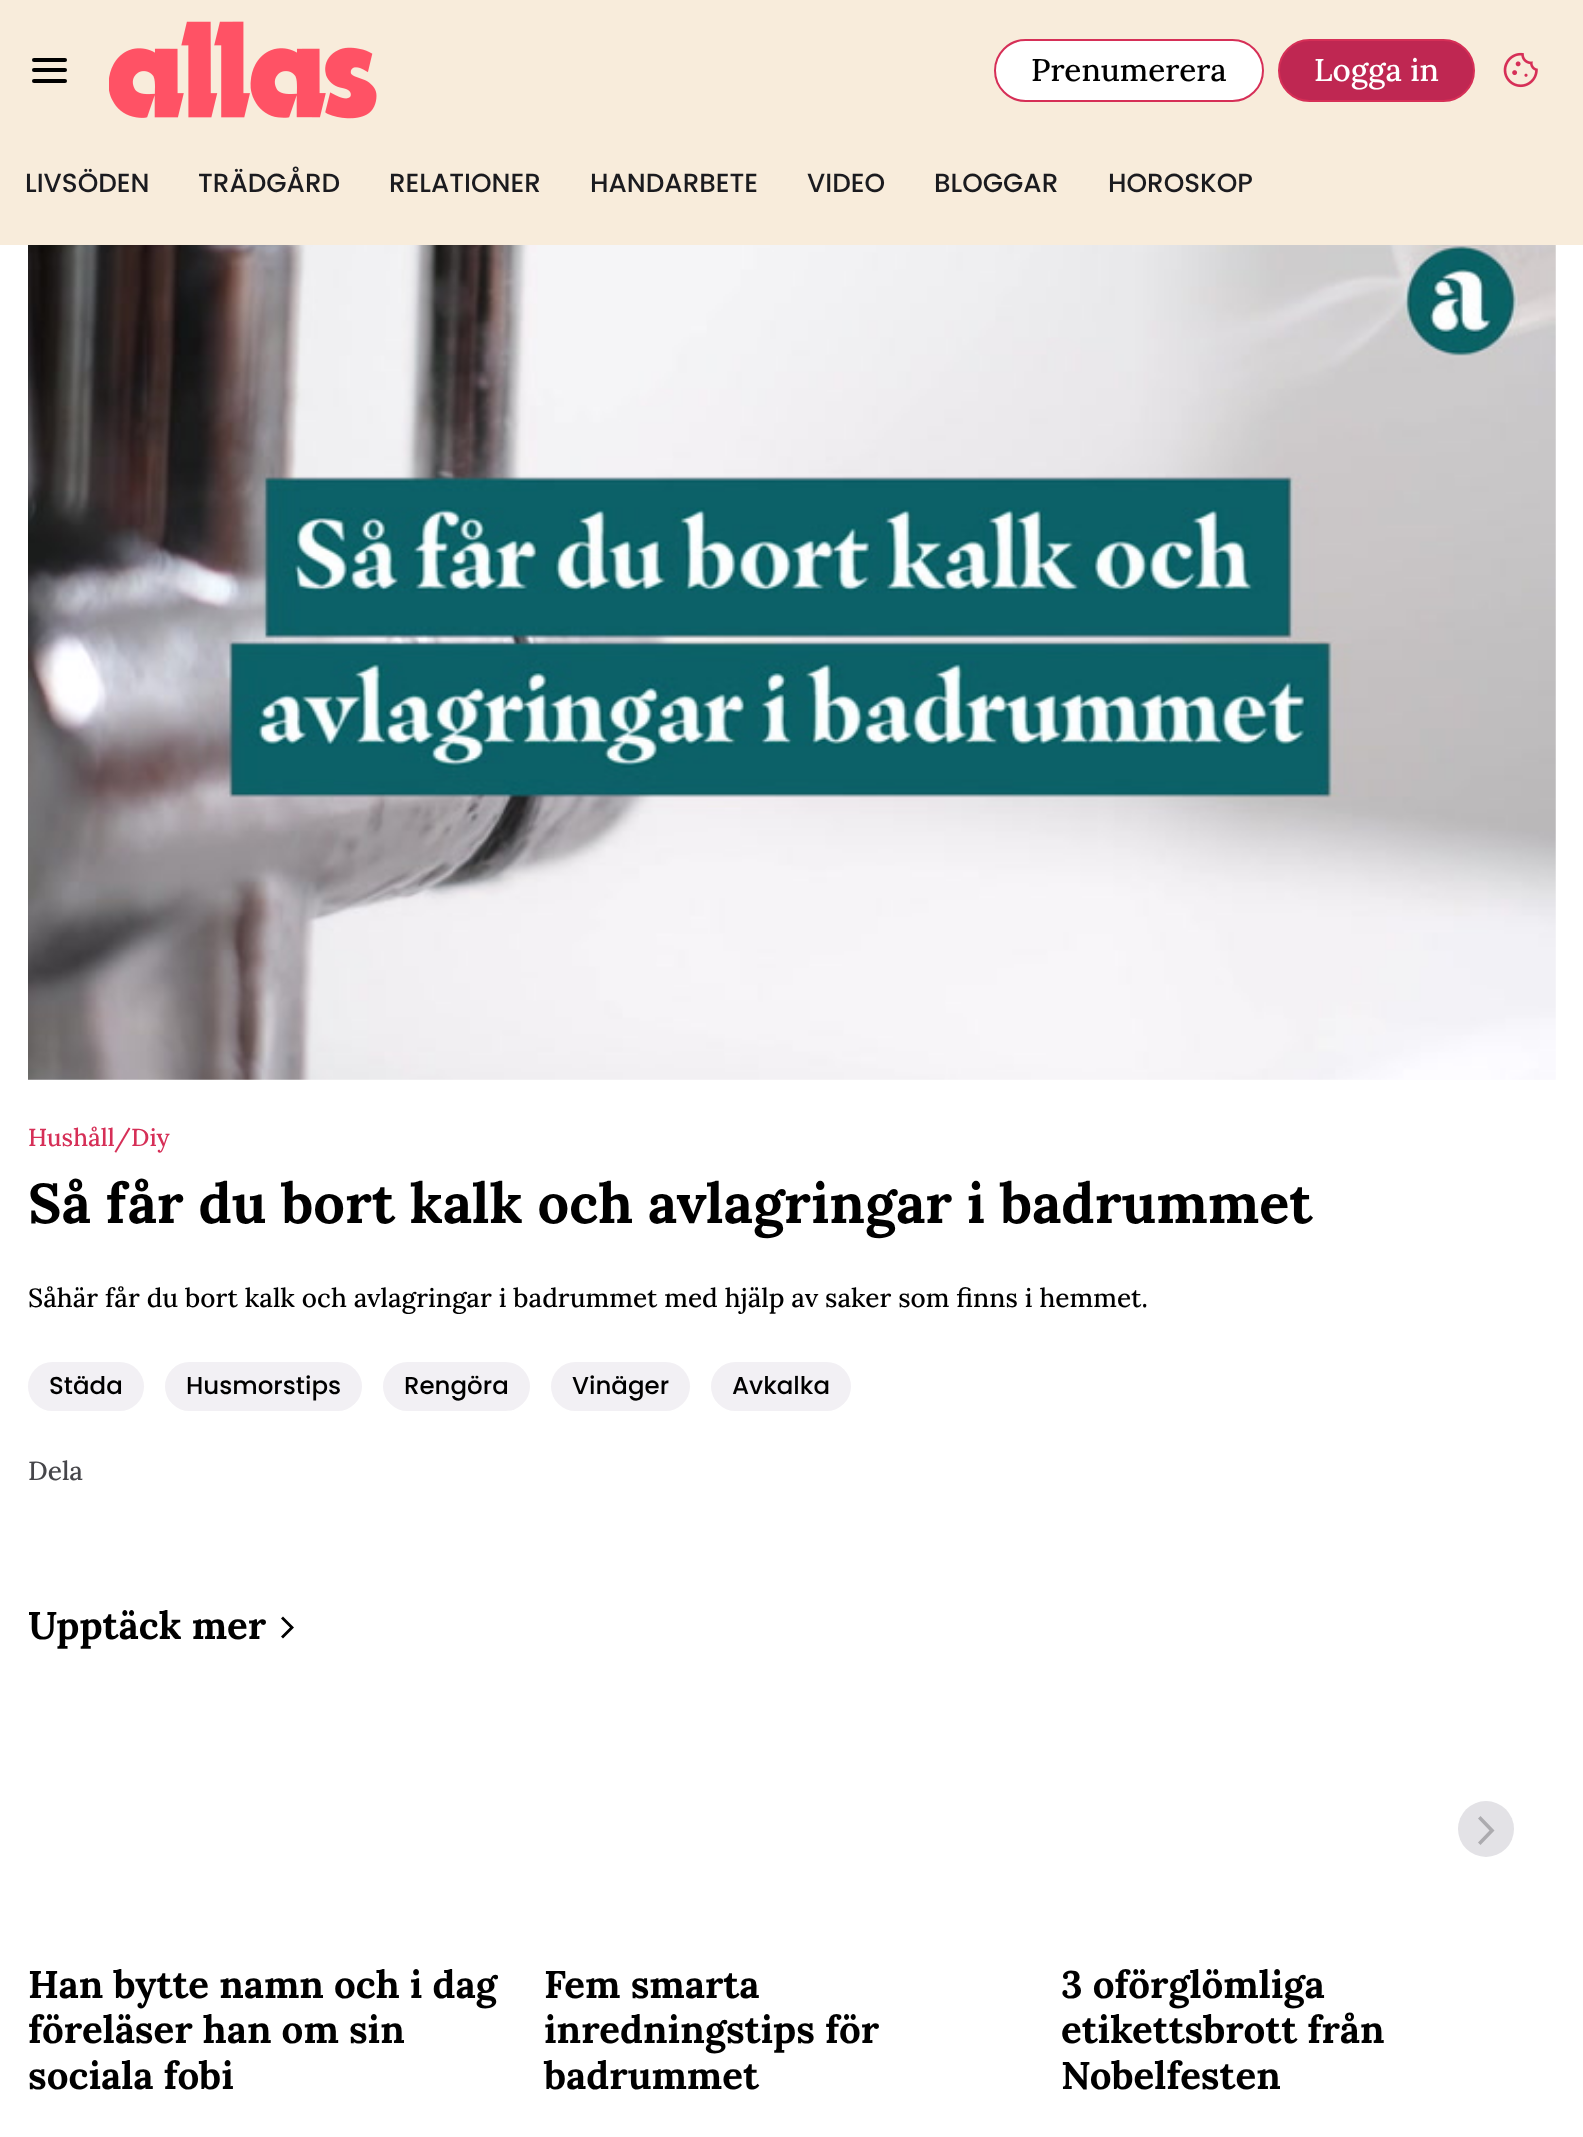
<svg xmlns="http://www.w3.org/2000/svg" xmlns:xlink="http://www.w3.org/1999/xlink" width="1583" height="2137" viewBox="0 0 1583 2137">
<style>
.cls-1{font:500 31.5px Lora;fill:#000000}
.cls-2{font:500 31.5px Lora;fill:#ffffff}
.cls-3{font:500 26.25px Poppins;fill:#1b1b1f}
.cls-4{font:500 24.5px Lora;fill:#d62f57}
.cls-5{font:bold 56px Lora;fill:#000000}
.cls-6{font:500 26.25px Lora;fill:#000000}
.cls-7{font:500 24.5px Poppins;fill:#000000}
.cls-8{font:500 26.25px Lora;fill:#46464a}
.cls-9{font:bold 38.5px Lora;fill:#000000}
</style>
<rect width="100%" height="100%" fill="#ffffff"/>
<rect fill="#f8ecdb" x="0" y="0" width="1583" height="245"/>
<rect fill="#000000" x="32" y="58" width="35" height="4" rx="2"/>
<rect fill="#000000" x="32" y="68" width="35" height="4" rx="2"/>
<rect fill="#000000" x="32" y="79" width="35" height="4" rx="2"/>
<image xlink:href="image0.png" x="109" y="21" width="268" height="98"/>
<rect fill="#ffffff" stroke="#d62f57" stroke-width="2" x="995" y="40" width="268" height="61" rx="30.5"/>
<rect fill="#bf2752" stroke="#d62f57" stroke-width="2" x="1279" y="40" width="195" height="61" rx="30.5"/>
<image xlink:href="image1.png" x="1503" y="52" width="35" height="36"/>
<image xlink:href="image2.png" x="28" y="245" width="1528" height="835"/>
<rect fill="#f2f0f4" x="28" y="1362" width="116" height="49" rx="24.5"/>
<rect fill="#f2f0f4" x="165" y="1362" width="197" height="49" rx="24.5"/>
<rect fill="#f2f0f4" x="383" y="1362" width="147" height="49" rx="24.5"/>
<rect fill="#f2f0f4" x="551" y="1362" width="139" height="49" rx="24.5"/>
<rect fill="#f2f0f4" x="711" y="1362" width="140" height="49" rx="24.5"/>
<path fill="#000000" d="M283 1638.5L281 1636.5L290 1627.5L281 1618.5L283 1616.5L294 1627.5Z"/>
<circle fill="#e3e2e6" cx="1486" cy="1829" r="28"/>
<path fill="#acabaf" d="M1480.5 1845L1478 1842.5L1489.5 1830.5L1478 1818.5L1480.5 1816L1494.5 1830.5Z"/>
<text class="cls-1" x="1031" y="81">Prenumerera</text>
<text class="cls-2" x="1314" y="81">Logga in</text>
<text class="cls-3" x="25" y="192">LIVSÖDEN</text>
<text class="cls-3" x="198" y="192">TRÄDGÅRD</text>
<text class="cls-3" x="389" y="192">RELATIONER</text>
<text class="cls-3" x="590" y="192">HANDARBETE</text>
<text class="cls-3" x="807" y="192">VIDEO</text>
<text class="cls-3" x="934" y="192">BLOGGAR</text>
<text class="cls-3" x="1108" y="192">HOROSKOP</text>
<text class="cls-4" x="28" y="1146">Hushåll/Diy</text>
<text class="cls-5" x="28" y="1223">Så får du bort kalk och avlagringar i badrummet</text>
<text class="cls-6" x="28" y="1307">Såhär får du bort kalk och avlagringar i badrummet med hjälp av saker som finns i hemmet.</text>
<text class="cls-7" x="49" y="1394">Städa</text>
<text class="cls-7" x="186" y="1394">Husmorstips</text>
<text class="cls-7" x="404" y="1394">Rengöra</text>
<text class="cls-7" x="572" y="1394">Vinäger</text>
<text class="cls-7" x="732" y="1394">Avkalka</text>
<text class="cls-8" x="28" y="1480">Dela</text>
<text class="cls-9" x="28" y="1639">Upptäck mer</text>
<text class="cls-9"><tspan x="28" y="1998">Han bytte namn och i dag</tspan><tspan x="28" y="2043">föreläser han om sin</tspan><tspan x="28" y="2089">sociala fobi</tspan></text>
<text class="cls-9"><tspan x="544" y="1998">Fem smarta</tspan><tspan x="544" y="2043">inredningstips för</tspan><tspan x="544" y="2089">badrummet</tspan></text>
<text class="cls-9"><tspan x="1061" y="1998">3 oförglömliga</tspan><tspan x="1061" y="2043">etikettsbrott från</tspan><tspan x="1061" y="2089">Nobelfesten</tspan></text>
</svg>
